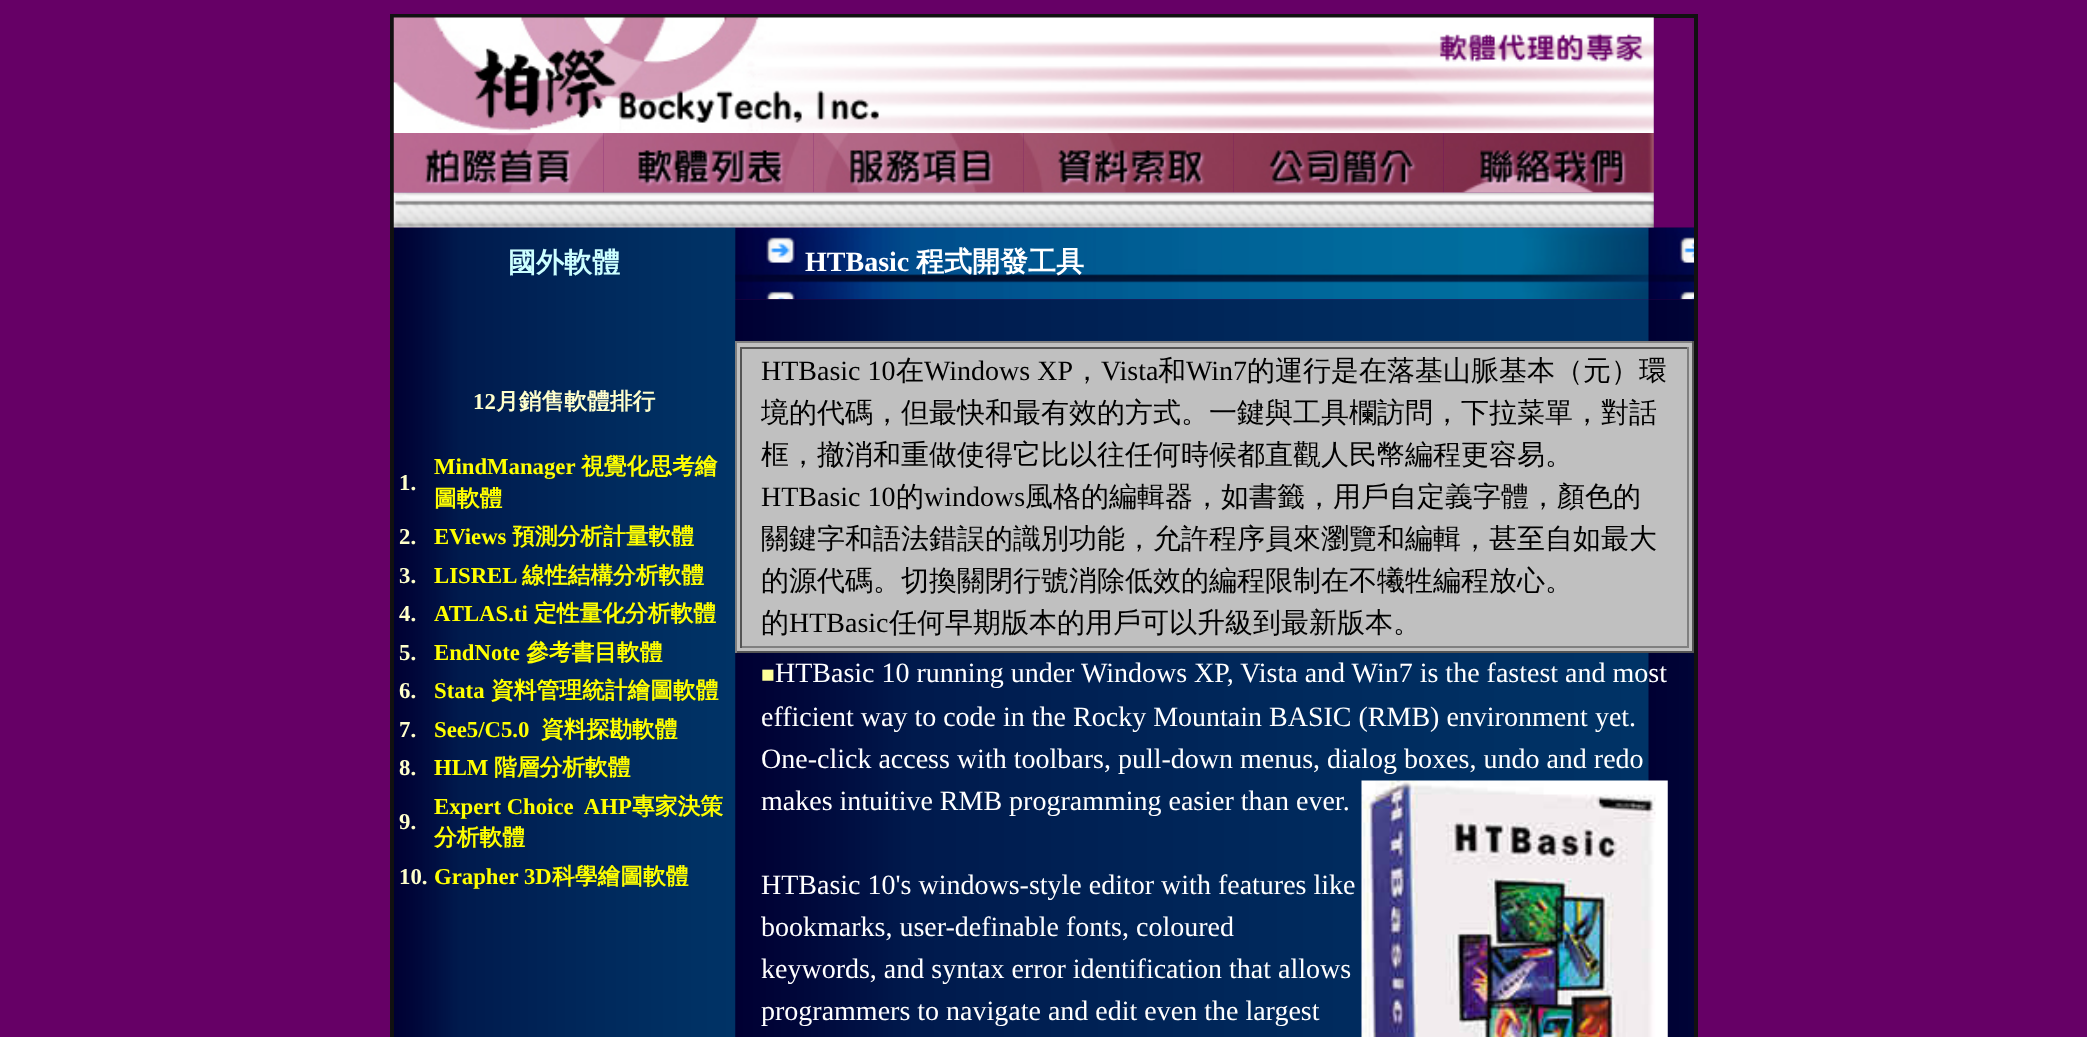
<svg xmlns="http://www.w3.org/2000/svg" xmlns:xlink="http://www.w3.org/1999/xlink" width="2087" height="1037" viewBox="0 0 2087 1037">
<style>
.cls-1{font:bold 28px WenQuanYi Zen Hei;fill:#ccffff}
.cls-2{font:bold 22.75px Liberation Serif;fill:#ffffcc}
.cls-3{font:bold 22.75px WenQuanYi Zen Hei;fill:#ffffcc}
.cls-4{font:bold 22.75px Liberation Serif;fill:#ffff00}
.cls-5{font:bold 22.75px WenQuanYi Zen Hei;fill:#ffff00}
.cls-6{font:bold 28px Liberation Serif;fill:#ffffff}
.cls-7{font:bold 28px WenQuanYi Zen Hei;fill:#ffffff}
.cls-8{font:28px Liberation Serif;fill:#000000}
.cls-9{font:500 28px WenQuanYi Zen Hei;fill:#000000}
.cls-10{font:22.75px Liberation Serif;fill:#ffff99}
.cls-11{font:28px Liberation Serif;fill:#ffffff}
</style>
<rect width="100%" height="100%" fill="#660066"/>
<rect fill="#111111" x="390" y="14" width="1308" height="2"/>
<rect fill="#111111" x="1696" y="14" width="2" height="1023"/>
<rect fill="#111111" x="390" y="14" width="2" height="1023"/>
<rect fill="#111111" x="392" y="16" width="1304" height="2"/>
<rect fill="#111111" x="1694" y="16" width="2" height="1021"/>
<rect fill="#111111" x="392" y="16" width="2" height="1021"/>
<image xlink:href="image0.png" x="393" y="17" width="1261" height="116"/>
<image xlink:href="image1.png" x="393" y="133" width="211" height="60"/>
<image xlink:href="image2.png" x="603" y="133" width="211" height="60"/>
<image xlink:href="image3.png" x="813" y="133" width="211" height="60"/>
<image xlink:href="image4.png" x="1023" y="133" width="211" height="60"/>
<image xlink:href="image5.png" x="1233" y="133" width="211" height="60"/>
<image xlink:href="image6.png" x="1444" y="133" width="210" height="60"/>
<image xlink:href="image8.png" x="394" y="227" width="341" height="810"/>
<image xlink:href="image9.png" x="394" y="227" width="341" height="74"/>
<image xlink:href="image10.png" x="735" y="227" width="959" height="73"/>
<image xlink:href="image7.png" x="393" y="192" width="1261" height="36"/>
<image xlink:href="image11.png" x="735" y="299" width="959" height="738"/>
<rect fill="#c0c0c0" x="737" y="343" width="955" height="308"/>
<rect fill="#808080" x="735" y="341" width="959" height="2"/>
<rect fill="#555555" x="1692" y="341" width="2" height="312"/>
<rect fill="#555555" x="735" y="651" width="959" height="2"/>
<rect fill="#808080" x="735" y="341" width="2" height="312"/>
<rect fill="#555555" x="740" y="347" width="949" height="2"/>
<rect fill="#808080" x="1687" y="347" width="2" height="301"/>
<rect fill="#808080" x="740" y="646" width="949" height="2"/>
<rect fill="#555555" x="740" y="347" width="2" height="301"/>
<image xlink:href="image12.png" x="1361" y="780" width="307" height="257"/>
<text class="cls-1" x="508" y="272">國外軟體</text>
<text class="cls-2" x="473" y="409">12</text>
<text class="cls-3" x="496" y="409">月銷售軟體排行</text>
<text class="cls-2" x="399" y="490">1.</text>
<text class="cls-4" x="434" y="474">MindManager</text>
<text class="cls-5" x="581" y="474">視覺化思考繪</text>
<text class="cls-5" x="434" y="506">圖軟體</text>
<text class="cls-2" x="399" y="544">2.</text>
<text class="cls-4" x="434" y="544">EViews</text>
<text class="cls-5" x="512" y="544">預測分析計量軟體</text>
<text class="cls-2" x="399" y="583">3.</text>
<text class="cls-4" x="434" y="583">LISREL</text>
<text class="cls-5" x="522" y="583">線性結構分析軟體</text>
<text class="cls-2" x="399" y="621">4.</text>
<text class="cls-4" x="434" y="621">ATLAS.ti</text>
<text class="cls-5" x="534" y="621">定性量化分析軟體</text>
<text class="cls-2" x="399" y="660">5.</text>
<text class="cls-4" x="434" y="660">EndNote</text>
<text class="cls-5" x="526" y="660">參考書目軟體</text>
<text class="cls-2" x="399" y="698">6.</text>
<text class="cls-4" x="434" y="698">Stata</text>
<text class="cls-5" x="491" y="698">資料管理統計繪圖軟體</text>
<text class="cls-2" x="399" y="737">7.</text>
<text class="cls-4" x="434" y="737">See5/C5.0</text>
<text class="cls-5" x="541" y="737">資料探勘軟體</text>
<text class="cls-2" x="399" y="775">8.</text>
<text class="cls-4" x="434" y="775">HLM</text>
<text class="cls-5" x="494" y="775">階層分析軟體</text>
<text class="cls-2" x="399" y="829">9.</text>
<text class="cls-4" xml:space="preserve" x="434" y="814">Expert Choice  AHP</text>
<text class="cls-5" x="632" y="814">專家決策</text>
<text class="cls-5" x="434" y="845">分析軟體</text>
<text class="cls-2" x="399" y="884">10.</text>
<text class="cls-4" x="434" y="884">Grapher 3D</text>
<text class="cls-5" x="552" y="884">科學繪圖軟體</text>
<text class="cls-6" x="805" y="271">HTBasic</text>
<text class="cls-7" x="916" y="271">程式開發工具</text>
<text class="cls-8" x="761" y="380">HTBasic 10</text>
<text class="cls-9" x="896" y="380">在</text>
<text class="cls-8" x="924" y="380">Windows XP</text>
<text class="cls-9" x="1073" y="380">，</text>
<text class="cls-8" x="1101" y="380">Vista</text>
<text class="cls-9" x="1158" y="380">和</text>
<text class="cls-8" x="1186" y="380">Win7</text>
<text class="cls-9" x="1247" y="380">的運行是在落基山脈基本（元）環</text>
<text class="cls-9"><tspan x="761" y="422">境的代碼，但最快和最有效的方式。一鍵與工具欄訪問，下拉菜單，對話</tspan><tspan x="761" y="464">框，撤消和重做使得它比以往任何時候都直觀人民幣編程更容易。</tspan></text>
<text class="cls-8" x="761" y="506">HTBasic 10</text>
<text class="cls-9" x="896" y="506">的</text>
<text class="cls-8" x="924" y="506">windows</text>
<text class="cls-9" x="1025" y="506">風格的編輯器，如書籤，用戶自定義字體，顏色的</text>
<text class="cls-9"><tspan x="761" y="548">關鍵字和語法錯誤的識別功能，允許程序員來瀏覽和編輯，甚至自如最大</tspan><tspan x="761" y="590">的源代碼。切換關閉行號消除低效的編程限制在不犧牲編程放心。</tspan><tspan x="761" y="632">的</tspan></text>
<text class="cls-8" x="789" y="632">HTBasic</text>
<text class="cls-9" x="889" y="632">任何早期版本的用戶可以升級到最新版本。</text>
<text class="cls-10" x="761" y="682">■</text>
<text class="cls-11" x="775" y="682">HTBasic 10 running under Windows XP, Vista and Win7 is the fastest and most</text>
<text class="cls-11"><tspan x="761" y="726">efficient way to code in the Rocky Mountain BASIC (RMB) environment yet.</tspan><tspan x="761" y="768">One-click access with toolbars, pull-down menus, dialog boxes, undo and redo</tspan><tspan x="761" y="810">makes intuitive RMB programming easier than ever.</tspan></text>
<text class="cls-11"><tspan x="761" y="894">HTBasic 10's windows-style editor with features like</tspan><tspan x="761" y="936">bookmarks, user-definable fonts, coloured</tspan><tspan x="761" y="978">keywords, and syntax error identification that allows</tspan><tspan x="761" y="1020">programmers to navigate and edit even the largest</tspan></text>
</svg>
